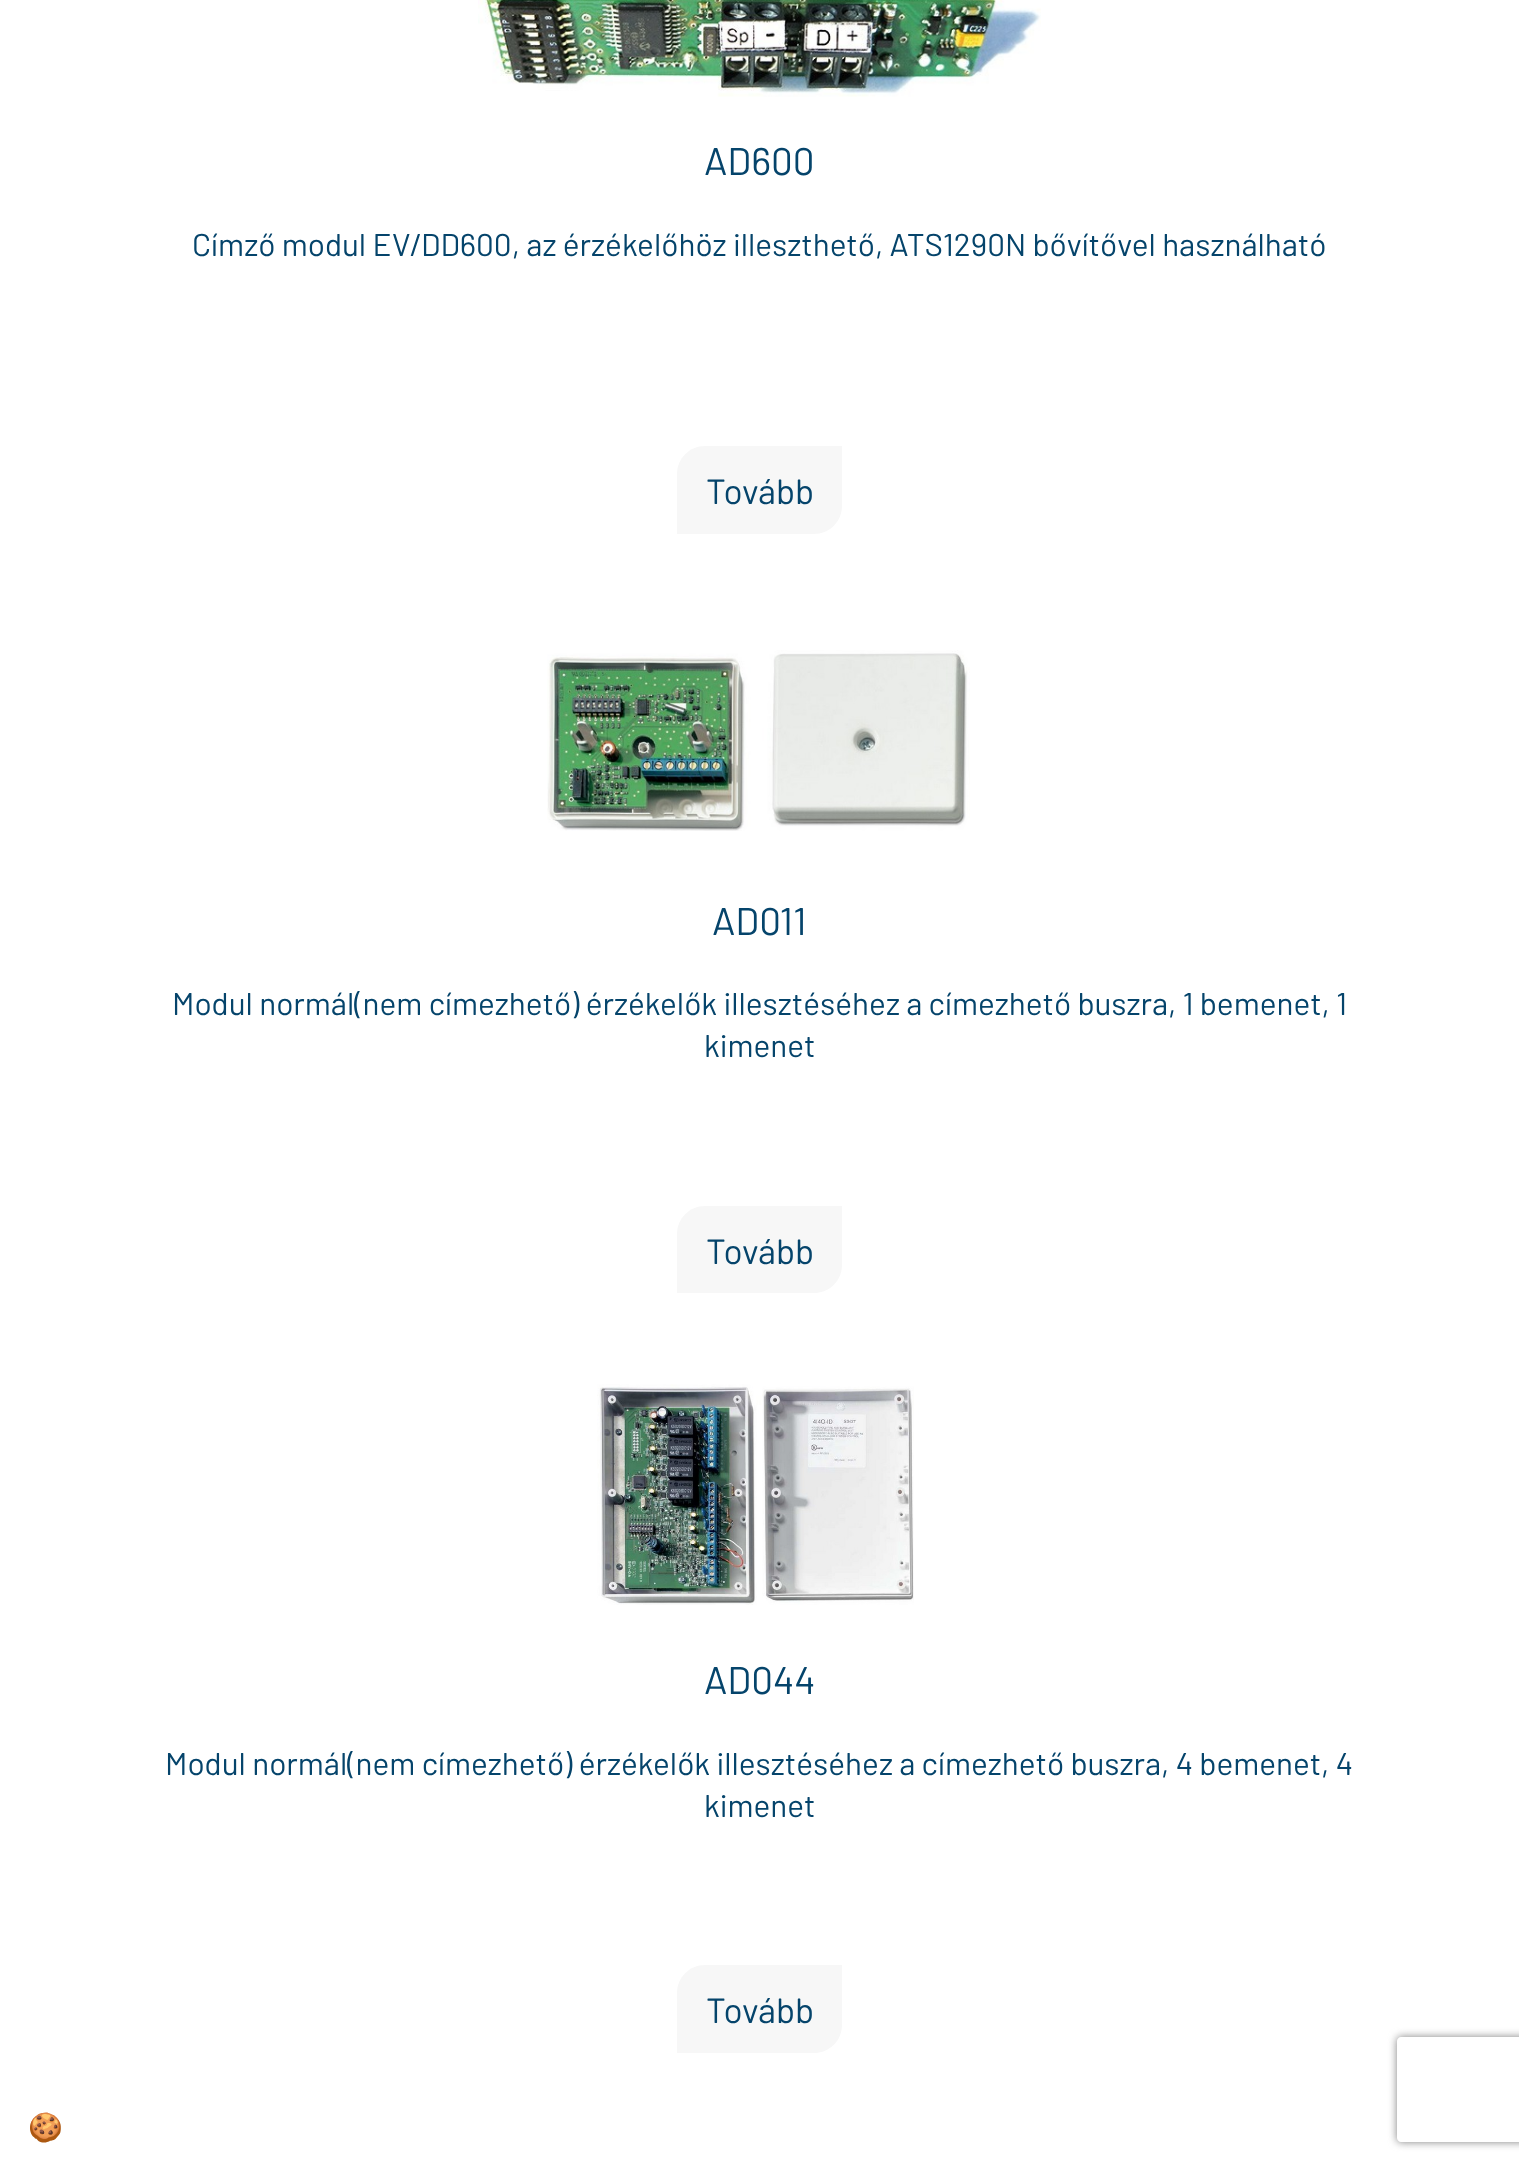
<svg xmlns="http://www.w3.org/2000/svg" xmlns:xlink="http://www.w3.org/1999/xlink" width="1519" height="2165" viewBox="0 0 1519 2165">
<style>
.cls-1{font:38.5px Barlow;fill:#05446b}
.cls-2{font:31.5px Barlow;fill:#05446b}
.cls-3{font:35px Barlow;fill:#05446b}
.cls-4{font:28px Noto Color Emoji;fill:#000000}
</style>
<defs>
<clipPath id="clip1"><path d="M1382 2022H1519V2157H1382ZM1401 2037H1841C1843 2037 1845 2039 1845 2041V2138C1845 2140 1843 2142 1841 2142H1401C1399 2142 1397 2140 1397 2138V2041C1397 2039 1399 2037 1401 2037Z" clip-rule="evenodd"/></clipPath>
</defs>
<rect width="100%" height="100%" fill="#ffffff"/>
<image xlink:href="image0.png" x="478" y="0" width="563" height="97"/>
<path fill="#f7f7f7" d="M705 446H842V506C842 521.5 829.5 534 814 534H677V474C677 458.5 689.5 446 705 446Z"/>
<image xlink:href="image1.png" x="547" y="650" width="423" height="181"/>
<path fill="#f7f7f7" d="M705 1206H842V1265C842 1280.5 829.5 1293 814 1293H677V1234C677 1218.5 689.5 1206 705 1206Z"/>
<image xlink:href="image2.png" x="597" y="1384" width="317" height="221"/>
<path fill="#f7f7f7" d="M705 1965H842V2025C842 2040.5 829.5 2053 814 2053H677V1993C677 1977.5 689.5 1965 705 1965Z"/>
<g clip-path="url(#clip1)">
<rect fill="#808080" filter="blur(4.5px)" x="1397" y="2037" width="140" height="105" rx="4"/>
</g>
<text class="cls-1" x="704" y="175">AD600</text>
<text class="cls-2" x="192" y="256">Címző modul EV/DD600, az érzékelőhöz illeszthető, ATS1290N bővítővel használható</text>
<text class="cls-3" x="706" y="504">Tovább</text>
<text class="cls-1" x="712" y="935">AD011</text>
<text class="cls-2" x="172" y="1015">Modul normál(nem címezhető) érzékelők illesztéséhez a címezhető buszra, 1 bemenet, 1</text>
<text class="cls-2" x="704" y="1057">kimenet</text>
<text class="cls-3" x="706" y="1264">Tovább</text>
<text class="cls-1" x="704" y="1694">AD044</text>
<text class="cls-2" x="165" y="1775">Modul normál(nem címezhető) érzékelők illesztéséhez a címezhető buszra, 4 bemenet, 4</text>
<text class="cls-2" x="704" y="1817">kimenet</text>
<text class="cls-3" x="706" y="2023">Tovább</text>
<text class="cls-4" x="28" y="2137">🍪</text>
</svg>
